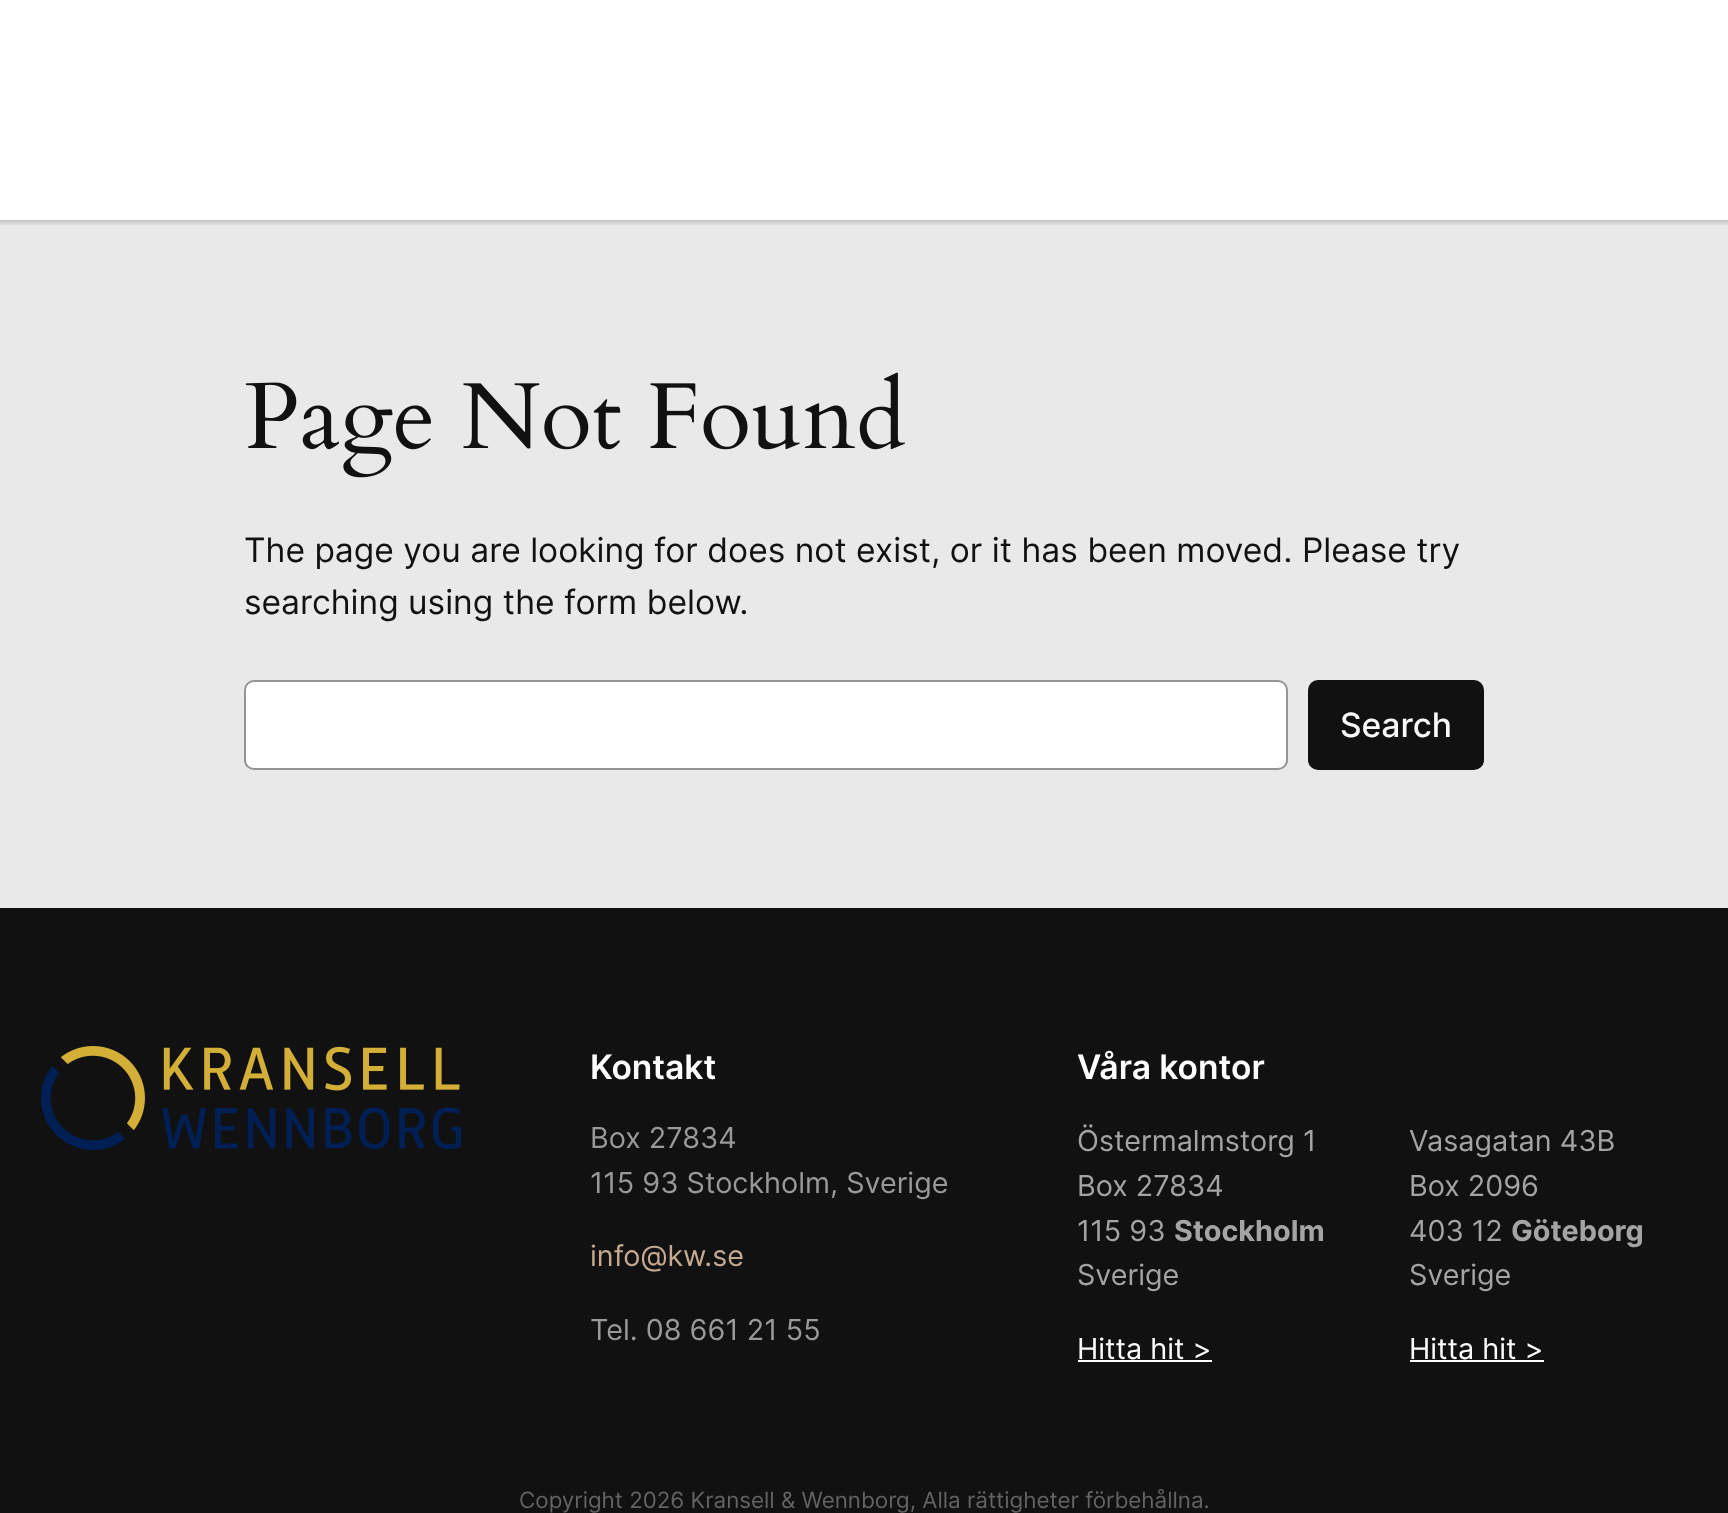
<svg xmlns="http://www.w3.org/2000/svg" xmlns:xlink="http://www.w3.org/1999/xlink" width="1728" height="1513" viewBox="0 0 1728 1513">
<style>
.cls-1{font:33.6px Inter;fill:#111111}
.cls-2{font:500 33.6px Inter;fill:#f9f9f9}
.cls-3{font:600 33.6px Inter;fill:#ffffff}
.cls-4{font:28.75px Inter;fill:#999999}
.cls-5{font:28.75px Inter;fill:#c2a990}
.cls-6{font:28.75px Inter;fill:#a4a4a4}
.cls-7{font:bold 28.75px Inter;fill:#a4a4a4}
.cls-8{font:28.75px Inter;fill:#ffffff}
.cls-9{font:22.4px Inter;fill:#636363}
</style>
<defs>
<linearGradient id="g1" gradientUnits="userSpaceOnUse" x1="864" y1="220" x2="864" y2="226"><stop offset="0" stop-color="#c4c4c4"/><stop offset="1" stop-color="#e9e9e9"/></linearGradient>
</defs>
<rect width="100%" height="100%" fill="#e9e9e9"/>
<rect fill="#ffffff" x="0" y="0" width="1728" height="220"/>
<rect fill="url(#g1)" x="0" y="220" width="1728" height="6"/>
<image xlink:href="image0.png" x="245" y="372" width="660" height="106"/>
<rect fill="#ffffff" stroke="#949494" stroke-width="2" x="245" y="681" width="1042" height="88" rx="9"/>
<rect fill="#111111" x="1308" y="680" width="176" height="90" rx="10"/>
<rect fill="#111111" x="0" y="908" width="1728" height="605"/>
<image xlink:href="image1.png" x="41" y="1046" width="420" height="104"/>
<rect fill="#ffffff" x="1078" y="1360" width="134" height="2"/>
<rect fill="#ffffff" x="1410" y="1360" width="134" height="2"/>
<text class="cls-1"><tspan x="244" y="562">The page you are looking for does not exist, or it has been moved. Please try</tspan><tspan x="244" y="614">searching using the form below.</tspan></text>
<text class="cls-2" x="1340" y="737">Search</text>
<text class="cls-3" x="590" y="1079">Kontakt</text>
<text class="cls-4"><tspan x="590" y="1148">Box 27834</tspan><tspan x="590" y="1193">115 93 Stockholm, Sverige</tspan></text>
<text class="cls-5" x="590" y="1266">info@kw.se</text>
<text class="cls-4" x="590" y="1340">Tel. 08 661 21 55</text>
<text class="cls-3" x="1077" y="1079">Våra kontor</text>
<text class="cls-6"><tspan x="1077" y="1151">Östermalmstorg 1</tspan><tspan x="1077" y="1196">Box 27834</tspan><tspan x="1077" y="1241">115 93</tspan></text>
<text class="cls-7" x="1174" y="1241">Stockholm</text>
<text class="cls-6" x="1077" y="1285">Sverige</text>
<text class="cls-8" x="1077" y="1359">Hitta hit &gt;</text>
<text class="cls-6"><tspan x="1409" y="1151">Vasagatan 43B</tspan><tspan x="1409" y="1196">Box 2096</tspan><tspan x="1409" y="1241">403 12</tspan></text>
<text class="cls-7" x="1511" y="1241">Göteborg</text>
<text class="cls-6" x="1409" y="1285">Sverige</text>
<text class="cls-8" x="1409" y="1359">Hitta hit &gt;</text>
<text class="cls-9" x="519" y="1508">Copyright 2026 Kransell &amp; Wennborg, Alla rättigheter förbehållna.</text>
</svg>
